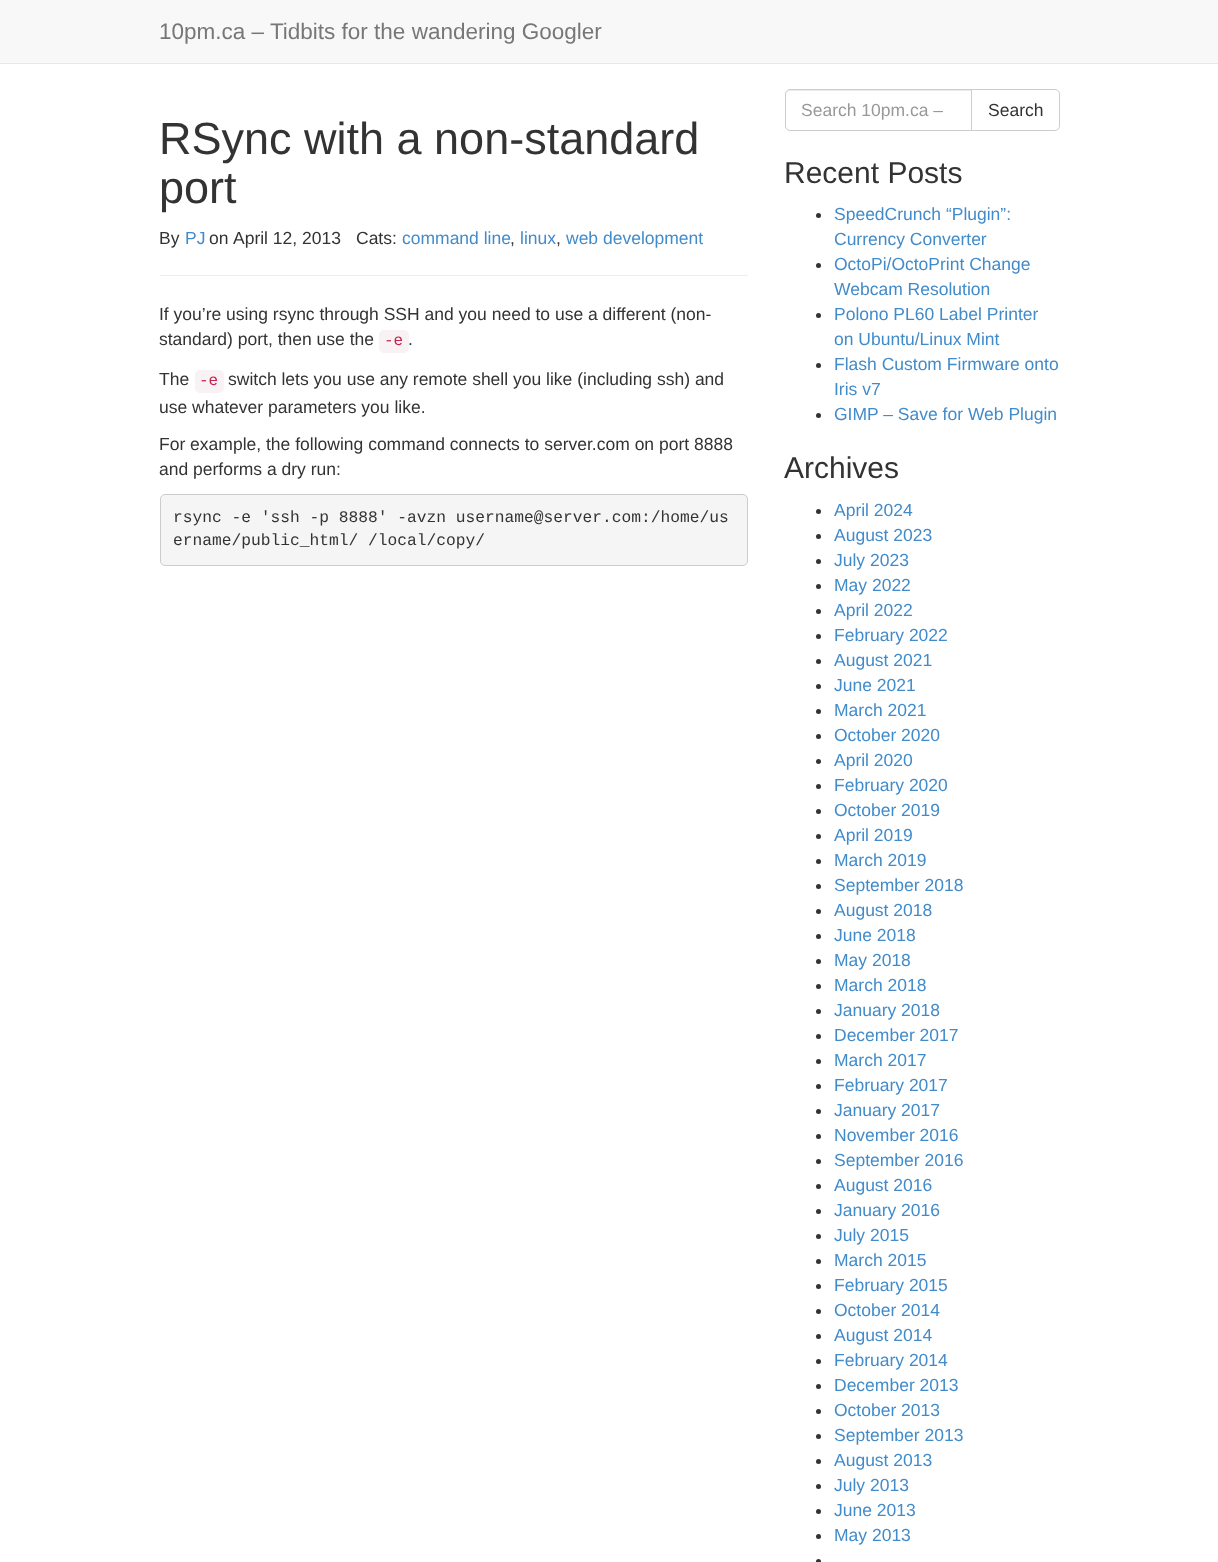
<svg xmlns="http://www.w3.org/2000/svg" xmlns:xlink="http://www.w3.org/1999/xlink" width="1218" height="1562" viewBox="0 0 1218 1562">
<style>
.cls-1{font:22.5px Liberation Sans;fill:#777777}
.cls-2{font:45px Liberation Sans;fill:#333333}
.cls-3{font:17.5px Liberation Sans;fill:#333333}
.cls-4{font:17.5px Liberation Sans;fill:#428bca}
.cls-5{font:16px Liberation Mono;fill:#c7254e}
.cls-6{font:16.25px Liberation Mono;fill:#333333}
.cls-7{font:17.5px Liberation Sans;fill:#999999}
.cls-8{font:30px Liberation Sans;fill:#333333}
</style>
<rect width="100%" height="100%" fill="#ffffff"/>
<rect fill="#f8f8f8" x="0" y="0" width="1218" height="63"/>
<rect fill="#e7e7e7" x="0" y="63" width="1218" height="1"/>
<rect fill="#eeeeee" x="160" y="275" width="588" height="1"/>
<rect fill="#f9f2f4" x="379" y="330" width="30" height="23" rx="5"/>
<rect fill="#f9f2f4" x="195" y="370" width="29" height="23" rx="5"/>
<rect fill="#f5f5f5" stroke="#cccccc" x="160.5" y="494.5" width="587" height="71" rx="4.5"/>
<path fill="#ececec" d="M790 91H971V90H789C787 91 786 93 786 95C786 93 788 91 790 91Z"/>
<path fill="none" stroke="#cccccc" d="M790 89.5H972.5V130.5H790C787.5 130.5 785.5 128.5 785.5 126V94C785.5 91.5 787.5 89.5 790 89.5Z"/>
<path fill="#ffffff" stroke="#cccccc" d="M971.5 89.5H1055C1057.5 89.5 1059.5 91.5 1059.5 94V126C1059.5 128.5 1057.5 130.5 1055 130.5H971.5Z"/>
<circle fill="#333333" cx="818.5" cy="215.5" r="2.5"/>
<circle fill="#333333" cx="818.5" cy="265.5" r="2.5"/>
<circle fill="#333333" cx="818.5" cy="315.5" r="2.5"/>
<circle fill="#333333" cx="818.5" cy="365.5" r="2.5"/>
<circle fill="#333333" cx="818.5" cy="415.5" r="2.5"/>
<circle fill="#333333" cx="818.5" cy="511.5" r="2.5"/>
<circle fill="#333333" cx="818.5" cy="536.5" r="2.5"/>
<circle fill="#333333" cx="818.5" cy="561.5" r="2.5"/>
<circle fill="#333333" cx="818.5" cy="586.5" r="2.5"/>
<circle fill="#333333" cx="818.5" cy="611.5" r="2.5"/>
<circle fill="#333333" cx="818.5" cy="636.5" r="2.5"/>
<circle fill="#333333" cx="818.5" cy="661.5" r="2.5"/>
<circle fill="#333333" cx="818.5" cy="686.5" r="2.5"/>
<circle fill="#333333" cx="818.5" cy="711.5" r="2.5"/>
<circle fill="#333333" cx="818.5" cy="736.5" r="2.5"/>
<circle fill="#333333" cx="818.5" cy="761.5" r="2.5"/>
<circle fill="#333333" cx="818.5" cy="786.5" r="2.5"/>
<circle fill="#333333" cx="818.5" cy="811.5" r="2.5"/>
<circle fill="#333333" cx="818.5" cy="836.5" r="2.5"/>
<circle fill="#333333" cx="818.5" cy="861.5" r="2.5"/>
<circle fill="#333333" cx="818.5" cy="886.5" r="2.5"/>
<circle fill="#333333" cx="818.5" cy="911.5" r="2.5"/>
<circle fill="#333333" cx="818.5" cy="936.5" r="2.5"/>
<circle fill="#333333" cx="818.5" cy="961.5" r="2.5"/>
<circle fill="#333333" cx="818.5" cy="986.5" r="2.5"/>
<circle fill="#333333" cx="818.5" cy="1011.5" r="2.5"/>
<circle fill="#333333" cx="818.5" cy="1036.5" r="2.5"/>
<circle fill="#333333" cx="818.5" cy="1061.5" r="2.5"/>
<circle fill="#333333" cx="818.5" cy="1086.5" r="2.5"/>
<circle fill="#333333" cx="818.5" cy="1111.5" r="2.5"/>
<circle fill="#333333" cx="818.5" cy="1136.5" r="2.5"/>
<circle fill="#333333" cx="818.5" cy="1161.5" r="2.5"/>
<circle fill="#333333" cx="818.5" cy="1186.5" r="2.5"/>
<circle fill="#333333" cx="818.5" cy="1211.5" r="2.5"/>
<circle fill="#333333" cx="818.5" cy="1236.5" r="2.5"/>
<circle fill="#333333" cx="818.5" cy="1261.5" r="2.5"/>
<circle fill="#333333" cx="818.5" cy="1286.5" r="2.5"/>
<circle fill="#333333" cx="818.5" cy="1311.5" r="2.5"/>
<circle fill="#333333" cx="818.5" cy="1336.5" r="2.5"/>
<circle fill="#333333" cx="818.5" cy="1361.5" r="2.5"/>
<circle fill="#333333" cx="818.5" cy="1386.5" r="2.5"/>
<circle fill="#333333" cx="818.5" cy="1411.5" r="2.5"/>
<circle fill="#333333" cx="818.5" cy="1436.5" r="2.5"/>
<circle fill="#333333" cx="818.5" cy="1461.5" r="2.5"/>
<circle fill="#333333" cx="818.5" cy="1486.5" r="2.5"/>
<circle fill="#333333" cx="818.5" cy="1511.5" r="2.5"/>
<circle fill="#333333" cx="818.5" cy="1536.5" r="2.5"/>
<circle fill="#333333" cx="818.5" cy="1561.5" r="2.5"/>
<text class="cls-1" x="159" y="39">10pm.ca – Tidbits for the wandering Googler</text>
<text class="cls-2"><tspan x="159" y="154">RSync with a non-standard</tspan><tspan x="159" y="203">port</tspan></text>
<text class="cls-3" x="159" y="244">By</text>
<text class="cls-4" x="185" y="244">PJ</text>
<text class="cls-3" x="209" y="244">on</text>
<text class="cls-3" x="233" y="244">April 12, 2013</text>
<text class="cls-3" x="356" y="244">Cats:</text>
<text class="cls-4" x="402" y="244">command line</text>
<text class="cls-3" x="510" y="244">,</text>
<text class="cls-4" x="520" y="244">linux</text>
<text class="cls-3" x="556" y="244">,</text>
<text class="cls-4" x="566" y="244">web development</text>
<text class="cls-3"><tspan x="159" y="320">If you’re using rsync through SSH and you need to use a different (non-</tspan><tspan x="159" y="345">standard) port, then use the</tspan></text>
<text class="cls-5" x="384" y="345">-e</text>
<text class="cls-3" x="408" y="345">.</text>
<text class="cls-3" x="159" y="385">The</text>
<text class="cls-5" x="199" y="385">-e</text>
<text class="cls-3" x="228" y="385">switch lets you use any remote shell you like (including ssh) and</text>
<text class="cls-3" x="159" y="413">use whatever parameters you like.</text>
<text class="cls-3"><tspan x="159" y="450">For example, the following command connects to server.com on port 8888</tspan><tspan x="159" y="475">and performs a dry run:</tspan></text>
<text class="cls-6"><tspan x="173" y="522">rsync -e 'ssh -p 8888' -avzn username@server.com:/home/us</tspan><tspan x="173" y="545">ername/public_html/ /local/copy/</tspan></text>
<text class="cls-7" x="801" y="116">Search 10pm.ca –</text>
<text class="cls-3" x="988" y="116">Search</text>
<text class="cls-8" x="784" y="183">Recent Posts</text>
<text class="cls-4"><tspan x="834" y="220">SpeedCrunch “Plugin”:</tspan><tspan x="834" y="245">Currency Converter</tspan><tspan x="834" y="270">OctoPi/OctoPrint Change</tspan><tspan x="834" y="295">Webcam Resolution</tspan><tspan x="834" y="320">Polono PL60 Label Printer</tspan><tspan x="834" y="345">on Ubuntu/Linux Mint</tspan><tspan x="834" y="370">Flash Custom Firmware onto</tspan><tspan x="834" y="395">Iris v7</tspan><tspan x="834" y="420">GIMP – Save for Web Plugin</tspan></text>
<text class="cls-8" x="784" y="478">Archives</text>
<text class="cls-4"><tspan x="834" y="516">April 2024</tspan><tspan x="834" y="541">August 2023</tspan><tspan x="834" y="566">July 2023</tspan><tspan x="834" y="591">May 2022</tspan><tspan x="834" y="616">April 2022</tspan><tspan x="834" y="641">February 2022</tspan><tspan x="834" y="666">August 2021</tspan><tspan x="834" y="691">June 2021</tspan><tspan x="834" y="716">March 2021</tspan><tspan x="834" y="741">October 2020</tspan><tspan x="834" y="766">April 2020</tspan><tspan x="834" y="791">February 2020</tspan><tspan x="834" y="816">October 2019</tspan><tspan x="834" y="841">April 2019</tspan><tspan x="834" y="866">March 2019</tspan><tspan x="834" y="891">September 2018</tspan><tspan x="834" y="916">August 2018</tspan><tspan x="834" y="941">June 2018</tspan><tspan x="834" y="966">May 2018</tspan><tspan x="834" y="991">March 2018</tspan><tspan x="834" y="1016">January 2018</tspan><tspan x="834" y="1041">December 2017</tspan><tspan x="834" y="1066">March 2017</tspan><tspan x="834" y="1091">February 2017</tspan><tspan x="834" y="1116">January 2017</tspan><tspan x="834" y="1141">November 2016</tspan><tspan x="834" y="1166">September 2016</tspan><tspan x="834" y="1191">August 2016</tspan><tspan x="834" y="1216">January 2016</tspan><tspan x="834" y="1241">July 2015</tspan><tspan x="834" y="1266">March 2015</tspan><tspan x="834" y="1291">February 2015</tspan><tspan x="834" y="1316">October 2014</tspan><tspan x="834" y="1341">August 2014</tspan><tspan x="834" y="1366">February 2014</tspan><tspan x="834" y="1391">December 2013</tspan><tspan x="834" y="1416">October 2013</tspan><tspan x="834" y="1441">September 2013</tspan><tspan x="834" y="1466">August 2013</tspan><tspan x="834" y="1491">July 2013</tspan><tspan x="834" y="1516">June 2013</tspan><tspan x="834" y="1541">May 2013</tspan></text>
</svg>
